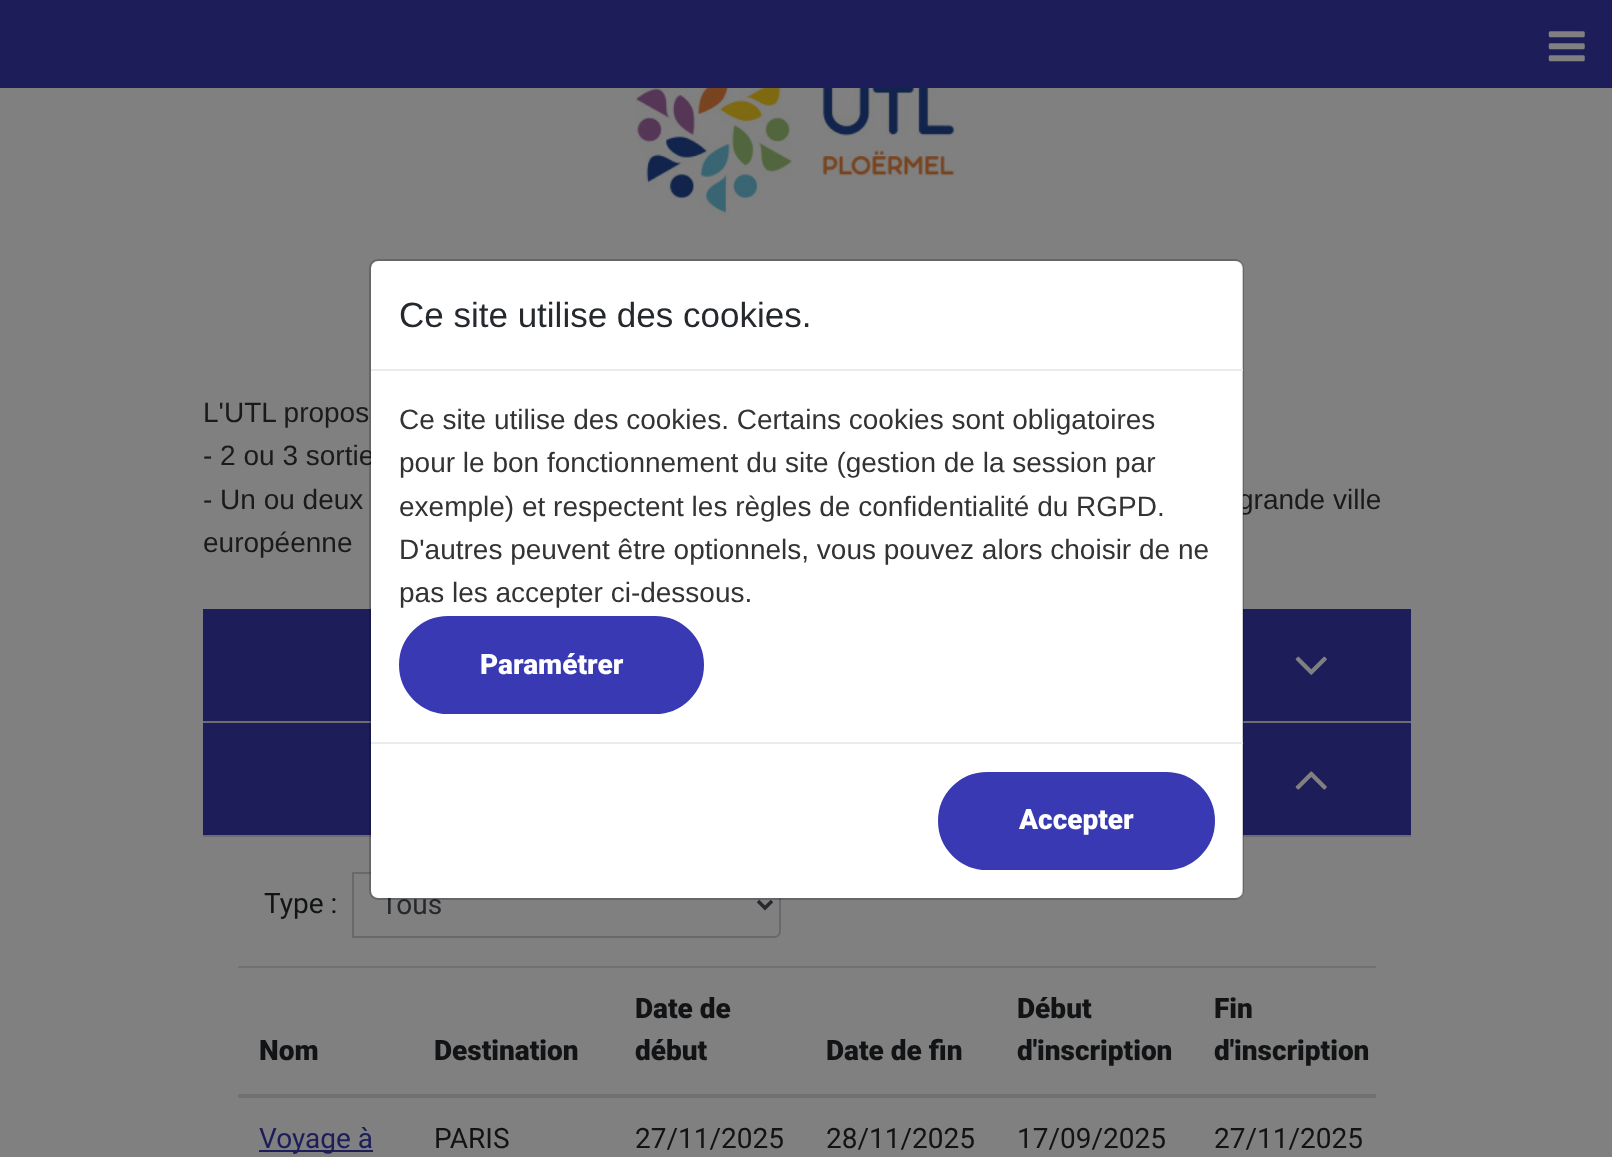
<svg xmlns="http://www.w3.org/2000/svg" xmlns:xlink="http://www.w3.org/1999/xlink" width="1612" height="1157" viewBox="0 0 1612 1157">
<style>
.cls-1{font:28px Liberation Sans;fill:#1a1a1a}
.cls-2{font:28px Roboto;fill:#111315}
.cls-3{font:28px Roboto;fill:#25282c}
.cls-4{font:900 28px Roboto;fill:#ffffff}
.cls-5{font:28px Liberation Sans;fill:#333333}
.cls-6{font:35px Liberation Sans;fill:#25282c}
.cls-7{font:900 28px Roboto;fill:#111315}
.cls-8{font:28px Roboto;fill:#1d1d5a}
</style>
<rect width="100%" height="100%" fill="#808080"/>
<rect fill="#1d1d5a" x="0" y="0" width="1612" height="88"/>
<image xlink:href="image0.png" x="636" y="88" width="321" height="129"/>
<image xlink:href="image1.png" x="1548" y="31" width="37" height="31"/>
<rect fill="#6d6d6d" x="203" y="721" width="1208" height="2"/>
<rect fill="#1d1d5a" x="203" y="609" width="1208" height="112"/>
<image xlink:href="image2.png" x="1295" y="656" width="32" height="19"/>
<rect fill="#6d6d6d" x="203" y="835" width="1208" height="2"/>
<rect fill="#1d1d5a" x="203" y="723" width="1208" height="112"/>
<image xlink:href="image3.png" x="1295" y="771" width="32" height="19"/>
<path fill="none" stroke="#676a6d" stroke-width="2" d="M353 873H774C777.5 873 780 875.5 780 879V931C780 934.5 777.5 937 774 937H353Z"/>
<path fill="none" stroke="#25282c" stroke-width="3.5" d="M758 901L765 908L772 901"/>
<rect fill="#6f7173" x="238" y="966" width="1138" height="2"/>
<rect fill="#6f7173" x="238" y="1094" width="1138" height="4"/>
<rect fill="#1d1d5a" x="259" y="1150" width="114" height="2"/>
<text class="cls-1"><tspan x="203" y="422">L'UTL propos</tspan><tspan x="203" y="465">- 2 ou 3 sortie</tspan><tspan x="203" y="509">- Un ou deux</tspan></text>
<text class="cls-1" x="1238" y="509">grande ville</text>
<text class="cls-1" x="203" y="552">européenne</text>
<text class="cls-2" x="264" y="913">Type :</text>
<text class="cls-3" x="381" y="914">Tous</text>
<rect fill="#ffffff" x="371" y="261" width="872" height="637" rx="7"/>
<rect fill="none" stroke="#000000" stroke-opacity="0.2" stroke-width="2" x="370" y="260" width="873" height="639" rx="8"/>
<rect fill="#3939b3" stroke="#3939b3" stroke-width="2" x="400" y="617" width="303" height="96" rx="48"/>
<text class="cls-4" x="480" y="674">Paramétrer</text>
<text class="cls-5" x="399" y="602">pas les accepter ci-dessous.</text>
<text class="cls-5" x="399" y="559">D'autres peuvent être optionnels, vous pouvez alors choisir de ne</text>
<text class="cls-5" x="399" y="516">exemple) et respectent les règles de confidentialité du RGPD.</text>
<text class="cls-5" x="399" y="472">pour le bon fonctionnement du site (gestion de la session par</text>
<text class="cls-5" x="399" y="429">Ce site utilise des cookies. Certains cookies sont obligatoires</text>
<rect fill="#3939b3" stroke="#3939b3" stroke-width="2" x="939" y="773" width="275" height="96" rx="48"/>
<text class="cls-4" x="1019" y="829">Accepter</text>
<rect fill="#e9ecef" x="371" y="742" width="872" height="2"/>
<text class="cls-6" x="399" y="327">Ce site utilise des cookies.</text>
<rect fill="#e9ecef" x="371" y="369" width="872" height="2"/>
<text class="cls-7" x="259" y="1060">Nom</text>
<text class="cls-7" x="434" y="1060">Destination</text>
<text class="cls-7"><tspan x="635" y="1018">Date de</tspan><tspan x="635" y="1060">début</tspan></text>
<text class="cls-7" x="826" y="1060">Date de fin</text>
<text class="cls-7"><tspan x="1017" y="1018">Début</tspan><tspan x="1017" y="1060">d'inscription</tspan></text>
<text class="cls-7"><tspan x="1214" y="1018">Fin</tspan><tspan x="1214" y="1060">d'inscription</tspan></text>
<text class="cls-8" x="259" y="1148">Voyage à</text>
<text class="cls-2" x="434" y="1148">PARIS</text>
<text class="cls-2" x="635" y="1148">27/11/2025</text>
<text class="cls-2" x="826" y="1148">28/11/2025</text>
<text class="cls-2" x="1017" y="1148">17/09/2025</text>
<text class="cls-2" x="1214" y="1148">27/11/2025</text>
</svg>
